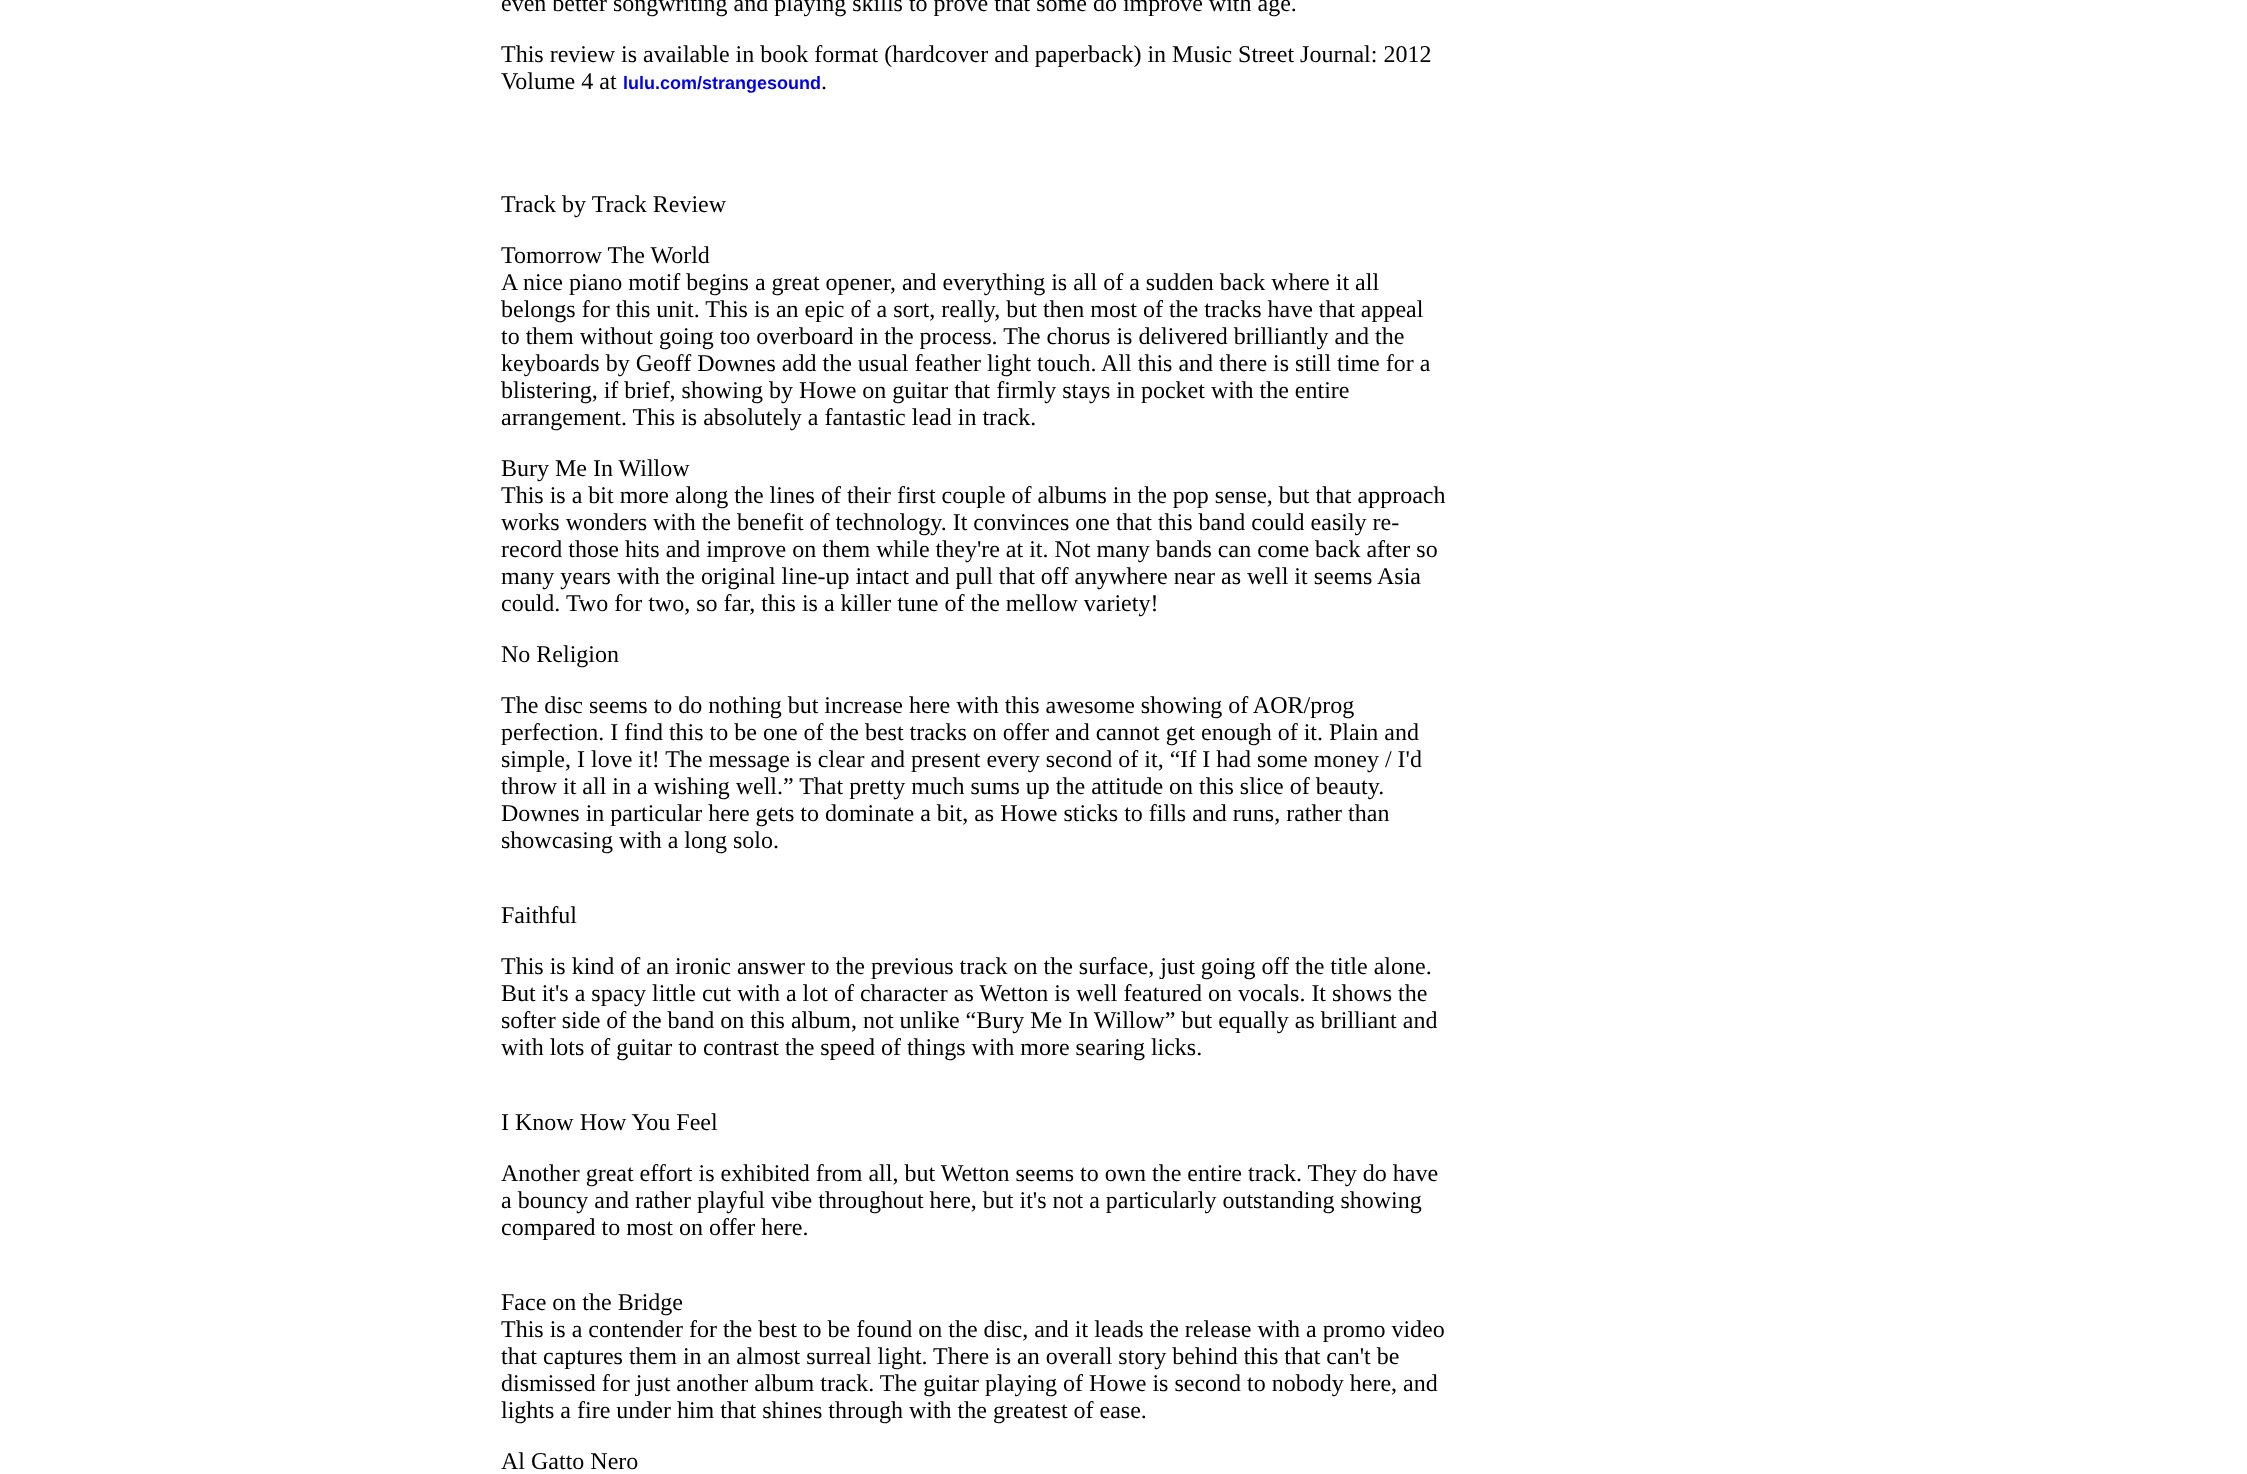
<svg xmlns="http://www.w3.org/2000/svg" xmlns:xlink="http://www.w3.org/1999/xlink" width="2247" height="1474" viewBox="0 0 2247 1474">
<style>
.cls-1{font:24px Liberation Serif;fill:#000000}
.cls-2{font:bold 18px Liberation Sans;fill:#0000ee}
</style>
<rect width="100%" height="100%" fill="#ffffff"/>
<text class="cls-1" x="501" y="11">even better songwriting and playing skills to prove that some do improve with age.</text>
<text class="cls-1"><tspan x="501" y="62">This review is available in book format (hardcover and paperback) in Music Street Journal: 2012</tspan><tspan x="501" y="89">Volume 4 at</tspan></text>
<text class="cls-2" x="623" y="89">lulu.com/strangesound</text>
<text class="cls-1" x="821" y="89">.</text>
<text class="cls-1" x="501" y="212">Track by Track Review</text>
<text class="cls-1"><tspan x="501" y="263">Tomorrow The World</tspan><tspan x="501" y="290">A nice piano motif begins a great opener, and everything is all of a sudden back where it all</tspan><tspan x="501" y="317">belongs for this unit. This is an epic of a sort, really, but then most of the tracks have that appeal</tspan><tspan x="501" y="344">to them without going too overboard in the process. The chorus is delivered brilliantly and the</tspan><tspan x="501" y="371">keyboards by Geoff Downes add the usual feather light touch. All this and there is still time for a</tspan><tspan x="501" y="398">blistering, if brief, showing by Howe on guitar that firmly stays in pocket with the entire</tspan><tspan x="501" y="425">arrangement. This is absolutely a fantastic lead in track.</tspan></text>
<text class="cls-1"><tspan x="501" y="476">Bury Me In Willow</tspan><tspan x="501" y="503">This is a bit more along the lines of their first couple of albums in the pop sense, but that approach</tspan><tspan x="501" y="530">works wonders with the benefit of technology. It convinces one that this band could easily re-</tspan><tspan x="501" y="557">record those hits and improve on them while they're at it. Not many bands can come back after so</tspan><tspan x="501" y="584">many years with the original line-up intact and pull that off anywhere near as well it seems Asia</tspan><tspan x="501" y="611">could. Two for two, so far, this is a killer tune of the mellow variety!</tspan></text>
<text class="cls-1" x="501" y="662">No Religion</text>
<text class="cls-1"><tspan x="501" y="713">The disc seems to do nothing but increase here with this awesome showing of AOR/prog</tspan><tspan x="501" y="740">perfection. I find this to be one of the best tracks on offer and cannot get enough of it. Plain and</tspan><tspan x="501" y="767">simple, I love it! The message is clear and present every second of it, “If I had some money / I'd</tspan><tspan x="501" y="794">throw it all in a wishing well.” That pretty much sums up the attitude on this slice of beauty.</tspan><tspan x="501" y="821">Downes in particular here gets to dominate a bit, as Howe sticks to fills and runs, rather than</tspan><tspan x="501" y="848">showcasing with a long solo.</tspan></text>
<text class="cls-1" x="501" y="923">Faithful</text>
<text class="cls-1"><tspan x="501" y="974">This is kind of an ironic answer to the previous track on the surface, just going off the title alone.</tspan><tspan x="501" y="1001">But it's a spacy little cut with a lot of character as Wetton is well featured on vocals. It shows the</tspan><tspan x="501" y="1028">softer side of the band on this album, not unlike “Bury Me In Willow” but equally as brilliant and</tspan><tspan x="501" y="1055">with lots of guitar to contrast the speed of things with more searing licks.</tspan></text>
<text class="cls-1" x="501" y="1130">I Know How You Feel</text>
<text class="cls-1"><tspan x="501" y="1181">Another great effort is exhibited from all, but Wetton seems to own the entire track. They do have</tspan><tspan x="501" y="1208">a bouncy and rather playful vibe throughout here, but it's not a particularly outstanding showing</tspan><tspan x="501" y="1235">compared to most on offer here.</tspan></text>
<text class="cls-1"><tspan x="501" y="1310">Face on the Bridge</tspan><tspan x="501" y="1337">This is a contender for the best to be found on the disc, and it leads the release with a promo video</tspan><tspan x="501" y="1364">that captures them in an almost surreal light. There is an overall story behind this that can't be</tspan><tspan x="501" y="1391">dismissed for just another album track. The guitar playing of Howe is second to nobody here, and</tspan><tspan x="501" y="1418">lights a fire under him that shines through with the greatest of ease.</tspan></text>
<text class="cls-1" x="501" y="1469">Al Gatto Nero</text>
</svg>
